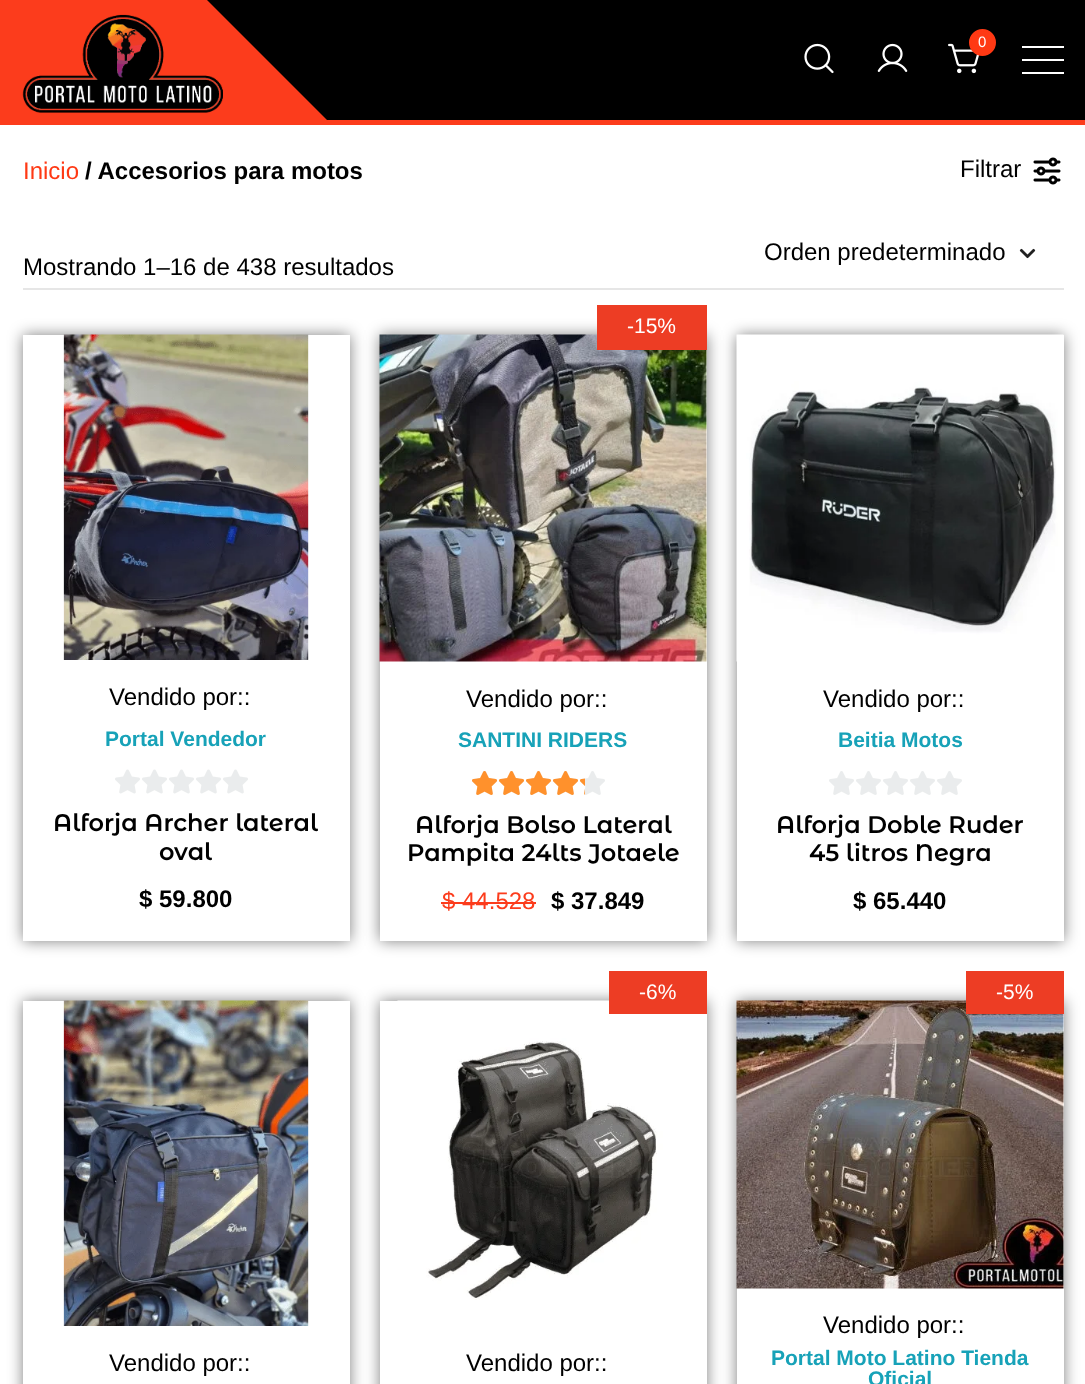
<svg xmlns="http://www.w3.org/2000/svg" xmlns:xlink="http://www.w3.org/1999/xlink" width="1085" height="1384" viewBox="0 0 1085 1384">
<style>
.cls-1{font:15px Liberation Sans;fill:#ffffff}
.cls-2{font:24px Liberation Sans;fill:#ff3914}
.cls-3{font:bold 24px Liberation Sans;fill:#000000}
.cls-4{font:24px Liberation Sans;fill:#000000}
.cls-5{font:bold 21px Liberation Sans;fill:#17a2b8}
.cls-6{font:600 24px Montserrat Alternates;fill:#000000}
.cls-7{font:21px Liberation Sans;fill:#ffffff}
.cls-8{font:24px Liberation Sans;fill:#fc3c1c}
</style>
<rect width="100%" height="100%" fill="#ffffff"/>
<rect fill="#fc3c1c" x="0" y="120" width="1085" height="5"/>
<rect fill="#000000" x="207" y="0" width="878" height="120"/>
<path fill="#fc3c1c" d="M330 123H0L165-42Z"/>
<rect fill="#fc3c1c" x="0" y="0" width="123" height="120"/>
<image xlink:href="image0.png" x="22" y="14" width="201" height="99"/>
<image xlink:href="image1.png" x="804" y="43" width="30" height="31"/>
<image xlink:href="image2.png" x="877" y="43" width="31" height="29"/>
<image xlink:href="image3.png" x="948" y="43" width="31" height="31"/>
<circle fill="#ff3914" stroke="#ff3914" stroke-width="2" cx="982.5" cy="42.5" r="12.5"/>
<rect fill="#ffffff" x="1022" y="46" width="42" height="2"/>
<rect fill="#ffffff" x="1022" y="59" width="42" height="2"/>
<rect fill="#ffffff" x="1022" y="72" width="42" height="2"/>
<image xlink:href="image4.png" x="1033" y="157" width="28" height="28"/>
<rect fill="#e6e6e6" x="23" y="288" width="1041" height="2"/>
<image xlink:href="image5.png" x="1019" y="248" width="17" height="11"/>
<rect fill="#000000" fill-opacity="0.5" filter="blur(7.5px)" x="23" y="335" width="327" height="606"/>
<rect fill="#ffffff" x="23" y="335" width="327" height="606"/>
<image xlink:href="image6.png" x="63" y="334" width="246" height="326"/>
<image xlink:href="image7.png" x="115" y="769" width="133" height="25"/>
<rect fill="#000000" fill-opacity="0.5" filter="blur(7.5px)" x="380" y="335" width="327" height="606"/>
<rect fill="#ffffff" x="380" y="350" width="327" height="591"/>
<image xlink:href="image8.png" x="379" y="334" width="328" height="328"/>
<rect fill="#ed3d24" x="597" y="305" width="110" height="45"/>
<image xlink:href="image9.png" x="472" y="771" width="133" height="24"/>
<image xlink:href="image10.png" x="472" y="771" width="113" height="24"/>
<rect fill="#fc3c1c" x="441" y="902" width="95" height="2"/>
<rect fill="#000000" fill-opacity="0.5" filter="blur(7.5px)" x="737" y="335" width="327" height="606"/>
<rect fill="#ffffff" x="737" y="335" width="327" height="606"/>
<image xlink:href="image11.png" x="736" y="334" width="328" height="328"/>
<image xlink:href="image9.png" x="829" y="771" width="133" height="24"/>
<rect fill="#000000" fill-opacity="0.5" filter="blur(7.5px)" x="23" y="1001" width="327" height="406"/>
<rect fill="#ffffff" x="23" y="1001" width="327" height="383"/>
<image xlink:href="image12.png" x="63" y="1000" width="246" height="326"/>
<rect fill="#000000" fill-opacity="0.5" filter="blur(7.5px)" x="380" y="1001" width="327" height="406"/>
<rect fill="#ffffff" x="380" y="1001" width="327" height="383"/>
<image xlink:href="image13.png" x="397" y="1000" width="293" height="300"/>
<rect fill="#ed3d24" x="609" y="971" width="98" height="43"/>
<rect fill="#000000" fill-opacity="0.5" filter="blur(7.5px)" x="737" y="1001" width="327" height="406"/>
<rect fill="#ffffff" x="737" y="1014" width="327" height="370"/>
<image xlink:href="image14.png" x="736" y="1000" width="328" height="289"/>
<rect fill="#ed3d24" x="966" y="971" width="98" height="43"/>
<text class="cls-1" x="978" y="47">0</text>
<text class="cls-2" x="23" y="179">Inicio</text>
<text class="cls-3" x="85" y="179">/ Accesorios para motos</text>
<text class="cls-4" x="960" y="177">Filtrar</text>
<text class="cls-4" x="23" y="275">Mostrando 1–16 de 438 resultados</text>
<text class="cls-4" x="764" y="260">Orden predeterminado</text>
<text class="cls-4" x="109" y="705">Vendido por::</text>
<text class="cls-5" x="105" y="746">Portal Vendedor</text>
<text class="cls-6" x="53" y="831">Alforja Archer lateral</text>
<text class="cls-6" x="159" y="860">oval</text>
<text class="cls-3" x="139" y="907">$ 59.800</text>
<text class="cls-7" x="627" y="333">-15%</text>
<text class="cls-4" x="466" y="707">Vendido por::</text>
<text class="cls-5" x="458" y="747">SANTINI RIDERS</text>
<text class="cls-6" x="415" y="833">Alforja Bolso Lateral</text>
<text class="cls-6" x="407" y="861">Pampita 24lts Jotaele</text>
<text class="cls-8" x="442" y="909">$ 44.528</text>
<text class="cls-3" x="551" y="909">$ 37.849</text>
<text class="cls-4" x="823" y="707">Vendido por::</text>
<text class="cls-5" x="838" y="747">Beitia Motos</text>
<text class="cls-6" x="776" y="833">Alforja Doble Ruder</text>
<text class="cls-6" x="809" y="861">45 litros Negra</text>
<text class="cls-3" x="853" y="909">$ 65.440</text>
<text class="cls-4" x="109" y="1371">Vendido por::</text>
<text class="cls-7" x="639" y="999">-6%</text>
<text class="cls-4" x="466" y="1371">Vendido por::</text>
<text class="cls-7" x="996" y="999">-5%</text>
<text class="cls-4" x="823" y="1333">Vendido por::</text>
<text class="cls-5" x="771" y="1365">Portal Moto Latino Tienda</text>
<text class="cls-5" x="868" y="1386">Oficial</text>
</svg>
